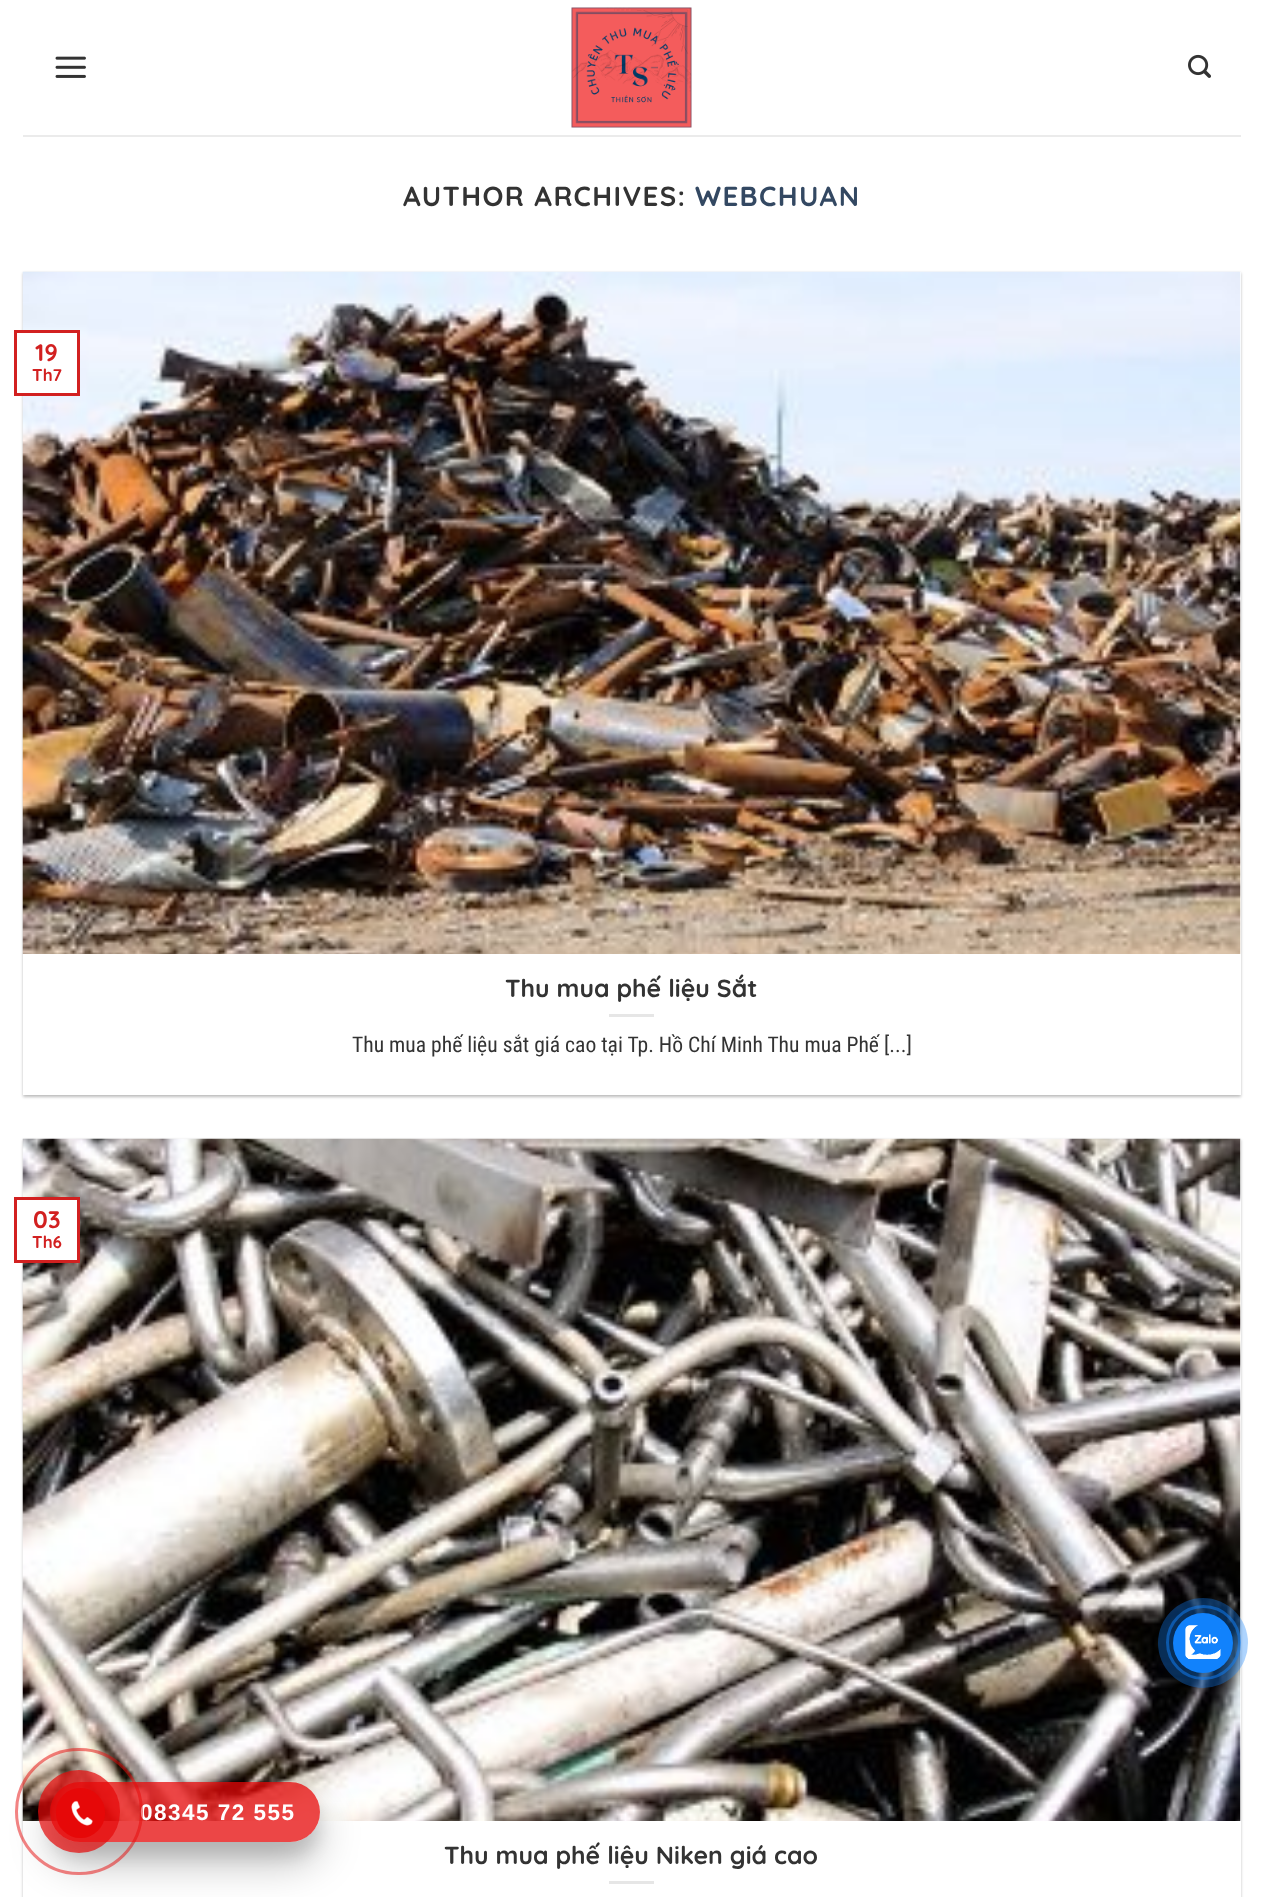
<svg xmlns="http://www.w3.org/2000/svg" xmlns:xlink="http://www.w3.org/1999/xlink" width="1263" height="1897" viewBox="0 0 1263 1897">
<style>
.cls-1{font:bold 27.6px Quicksand;letter-spacing:1.4px;fill:#333333}
.cls-2{font:bold 27.6px Quicksand;letter-spacing:1.4px;fill:#334862}
.cls-3{font:bold 24px Quicksand;fill:#d22020}
.cls-4{font:bold 17px Quicksand;fill:#d22020}
.cls-5{font:bold 24.8px Quicksand;fill:#333333}
.cls-6{font:21.6px Roboto Condensed;fill:#333333}
.cls-7{font:bold 22.5px Liberation Sans;letter-spacing:1.5px;fill:#ffffff}
</style>
<defs>
<clipPath id="clip1"><path d="M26 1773H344V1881H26ZM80 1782H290C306.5 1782 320 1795.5 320 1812C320 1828.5 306.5 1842 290 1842H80C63.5 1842 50 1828.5 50 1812C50 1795.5 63.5 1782 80 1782Z" clip-rule="evenodd"/></clipPath>
<clipPath id="clip2"><path d="M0 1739H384V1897H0ZM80 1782H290C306.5 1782 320 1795.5 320 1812C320 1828.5 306.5 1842 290 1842H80C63.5 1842 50 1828.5 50 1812C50 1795.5 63.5 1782 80 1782Z" clip-rule="evenodd"/></clipPath>
</defs>
<rect width="100%" height="100%" fill="#ffffff"/>
<image xlink:href="image0.png" x="55" y="56" width="31" height="22"/>
<image xlink:href="image1.png" x="571" y="7" width="121" height="121"/>
<image xlink:href="image2.png" x="1188" y="54" width="23" height="24"/>
<rect fill="#ebebeb" x="23" y="135" width="1218" height="2"/>
<rect fill="#000000" fill-opacity="0.24" filter="blur(1.5px)" x="23" y="273" width="1218" height="824"/>
<rect fill="#000000" fill-opacity="0.12" filter="blur(2px)" x="26" y="276" width="1212" height="818"/>
<rect fill="#ffffff" x="23" y="272" width="1218" height="823"/>
<image xlink:href="image3.png" x="22" y="271" width="1219" height="683"/>
<rect fill="#ffffff" x="20" y="333" width="57" height="60"/>
<rect fill="none" stroke="#d22020" stroke-width="3" x="15.5" y="331.5" width="63" height="63"/>
<rect fill="#e6e6e6" x="609" y="1014" width="45" height="3"/>
<rect fill="#000000" fill-opacity="0.24" filter="blur(1.5px)" x="23" y="1140" width="1218" height="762"/>
<rect fill="#ffffff" x="23" y="1139" width="1218" height="758"/>
<image xlink:href="image4.png" x="22" y="1138" width="1219" height="683"/>
<rect fill="#ffffff" x="20" y="1200" width="57" height="60"/>
<rect fill="none" stroke="#d22020" stroke-width="3" x="15.5" y="1198.5" width="63" height="63"/>
<rect fill="#e6e6e6" x="609" y="1881" width="45" height="3"/>
<circle fill="none" stroke="#1182fc" stroke-opacity="0.5" stroke-width="3" cx="1203.5" cy="1642.5" r="36"/>
<circle fill="#1182fc" fill-opacity="0.34" cx="1203" cy="1643" r="45"/>
<circle fill="#1182fc" cx="1203" cy="1643" r="30"/>
<image xlink:href="image5.png" x="1185" y="1625" width="36" height="35"/>
<g clip-path="url(#clip1)">
<rect fill="#000000" fill-opacity="0.1" filter="blur(7.5px)" x="50" y="1797" width="270" height="60" rx="30"/>
</g>
<g clip-path="url(#clip2)">
<rect fill="#000000" fill-opacity="0.25" filter="blur(21px)" x="50" y="1803" width="270" height="60" rx="30"/>
</g>
<rect fill="#e60808" fill-opacity="0.75" x="50" y="1782" width="270" height="60" rx="30"/>
<text class="cls-1" x="403" y="206">AUTHOR ARCHIVES:</text>
<text class="cls-2" x="695" y="206">WEBCHUAN</text>
<text class="cls-3" x="35" y="361">19</text>
<text class="cls-4" x="32" y="381">Th7</text>
<text class="cls-5" x="505" y="997">Thu mua phế liệu Sắt</text>
<text class="cls-6" x="352" y="1052">Thu mua phế liệu sắt giá cao tại Tp. Hồ Chí Minh Thu mua Phế [...]</text>
<text class="cls-3" x="33" y="1228">03</text>
<text class="cls-4" x="32" y="1248">Th6</text>
<text class="cls-5" x="444" y="1864">Thu mua phế liệu Niken giá cao</text>
<text class="cls-7" x="140" y="1820">08345 72 555</text>
<rect fill="none" stroke="#e60808" stroke-opacity="0.5" stroke-width="3" x="16.5" y="1749.5" width="125" height="124" rx="62"/>
<rect fill="#e60808" fill-opacity="0.7" x="38" y="1770" width="82" height="83" rx="41"/>
<rect fill="#e60808" x="56" y="1788" width="49" height="50" rx="24.5"/>
<image xlink:href="image6.png" x="71" y="1800" width="22" height="26"/>
</svg>
